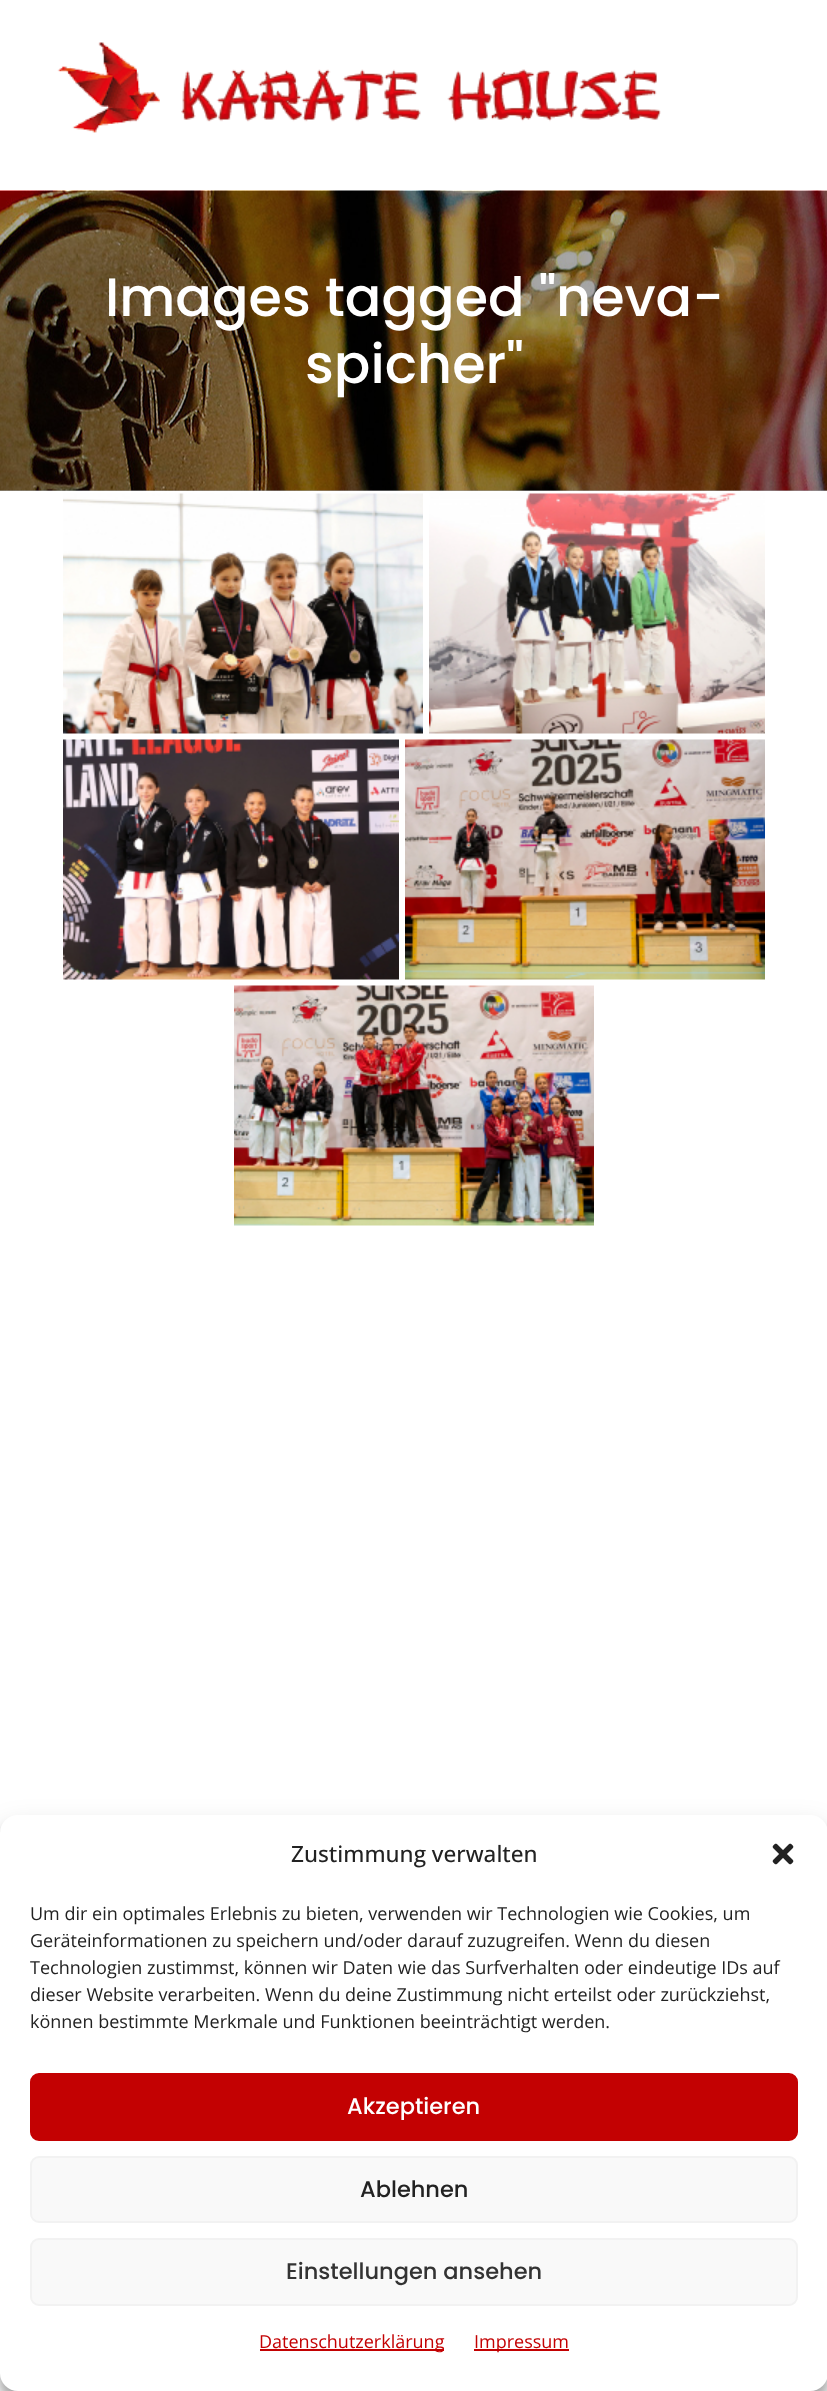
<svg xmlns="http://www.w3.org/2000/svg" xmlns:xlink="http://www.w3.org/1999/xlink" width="827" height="2391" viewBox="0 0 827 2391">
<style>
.cls-1{font:500 54px Poppins;fill:#ffffff}
.cls-2{font:500 22.5px Open Sans;fill:#222222}
.cls-3{font:18px Open Sans;fill:#222222}
.cls-4{font:500 22.5px Poppins;fill:#ffffff}
.cls-5{font:500 22.5px Poppins;fill:#222222}
.cls-6{font:500 22.5px Poppins;fill:#333333}
.cls-7{font:18px Open Sans;fill:#c30102}
</style>
<rect width="100%" height="100%" fill="#ffffff"/>
<image xlink:href="image0.png" x="57" y="42" width="604" height="91"/>
<rect fill="#a0a2a4" x="0" y="490" width="827" height="1"/>
<image xlink:href="image1.png" x="0" y="190" width="827" height="301"/>
<image xlink:href="image2.png" x="63" y="493" width="360" height="241"/>
<image xlink:href="image3.png" x="429" y="493" width="336" height="241"/>
<image xlink:href="image4.png" x="63" y="739" width="336" height="241"/>
<image xlink:href="image5.png" x="405" y="739" width="360" height="241"/>
<image xlink:href="image6.png" x="234" y="985" width="360" height="241"/>
<rect fill="#000000" fill-opacity="0.23" filter="blur(4.5px)" x="0" y="1824" width="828" height="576" rx="18"/>
<rect fill="#000000" fill-opacity="0.19" filter="blur(15px)" x="0" y="1830" width="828" height="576" rx="18"/>
<rect fill="#ffffff" x="0" y="1815" width="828" height="576" rx="18"/>
<image xlink:href="image7.png" x="772" y="1843" width="22" height="22"/>
<rect fill="#c30102" stroke="#c30102" stroke-width="2" x="31" y="2074" width="766" height="66" rx="8"/>
<rect fill="#f9f9f9" stroke="#f2f2f2" stroke-width="2" x="31" y="2157" width="766" height="65" rx="8"/>
<rect fill="#f9f9f9" stroke="#f2f2f2" stroke-width="2" x="31" y="2239" width="766" height="66" rx="8"/>
<rect fill="#c30102" x="260" y="2349" width="184" height="2"/>
<rect fill="#c30102" x="474" y="2349" width="95" height="2"/>
<text class="cls-1" x="105" y="316">Images tagged "neva-</text>
<text class="cls-1" x="305" y="383">spicher"</text>
<text class="cls-2" x="291" y="1862">Zustimmung verwalten</text>
<text class="cls-3"><tspan x="30" y="1920">Um dir ein optimales Erlebnis zu bieten, verwenden wir Technologien wie Cookies, um</tspan><tspan x="30" y="1947">Geräteinformationen zu speichern und/oder darauf zuzugreifen. Wenn du diesen</tspan><tspan x="30" y="1974">Technologien zustimmst, können wir Daten wie das Surfverhalten oder eindeutige IDs auf</tspan><tspan x="30" y="2001">dieser Website verarbeiten. Wenn du deine Zustimmung nicht erteilst oder zurückziehst,</tspan><tspan x="30" y="2028">können bestimmte Merkmale und Funktionen beeinträchtigt werden.</tspan></text>
<text class="cls-4" x="347" y="2114">Akzeptieren</text>
<text class="cls-5" x="360" y="2197">Ablehnen</text>
<text class="cls-6" x="286" y="2279">Einstellungen ansehen</text>
<text class="cls-7" x="259" y="2348">Datenschutzerklärung</text>
<text class="cls-7" x="474" y="2348">Impressum</text>
</svg>
